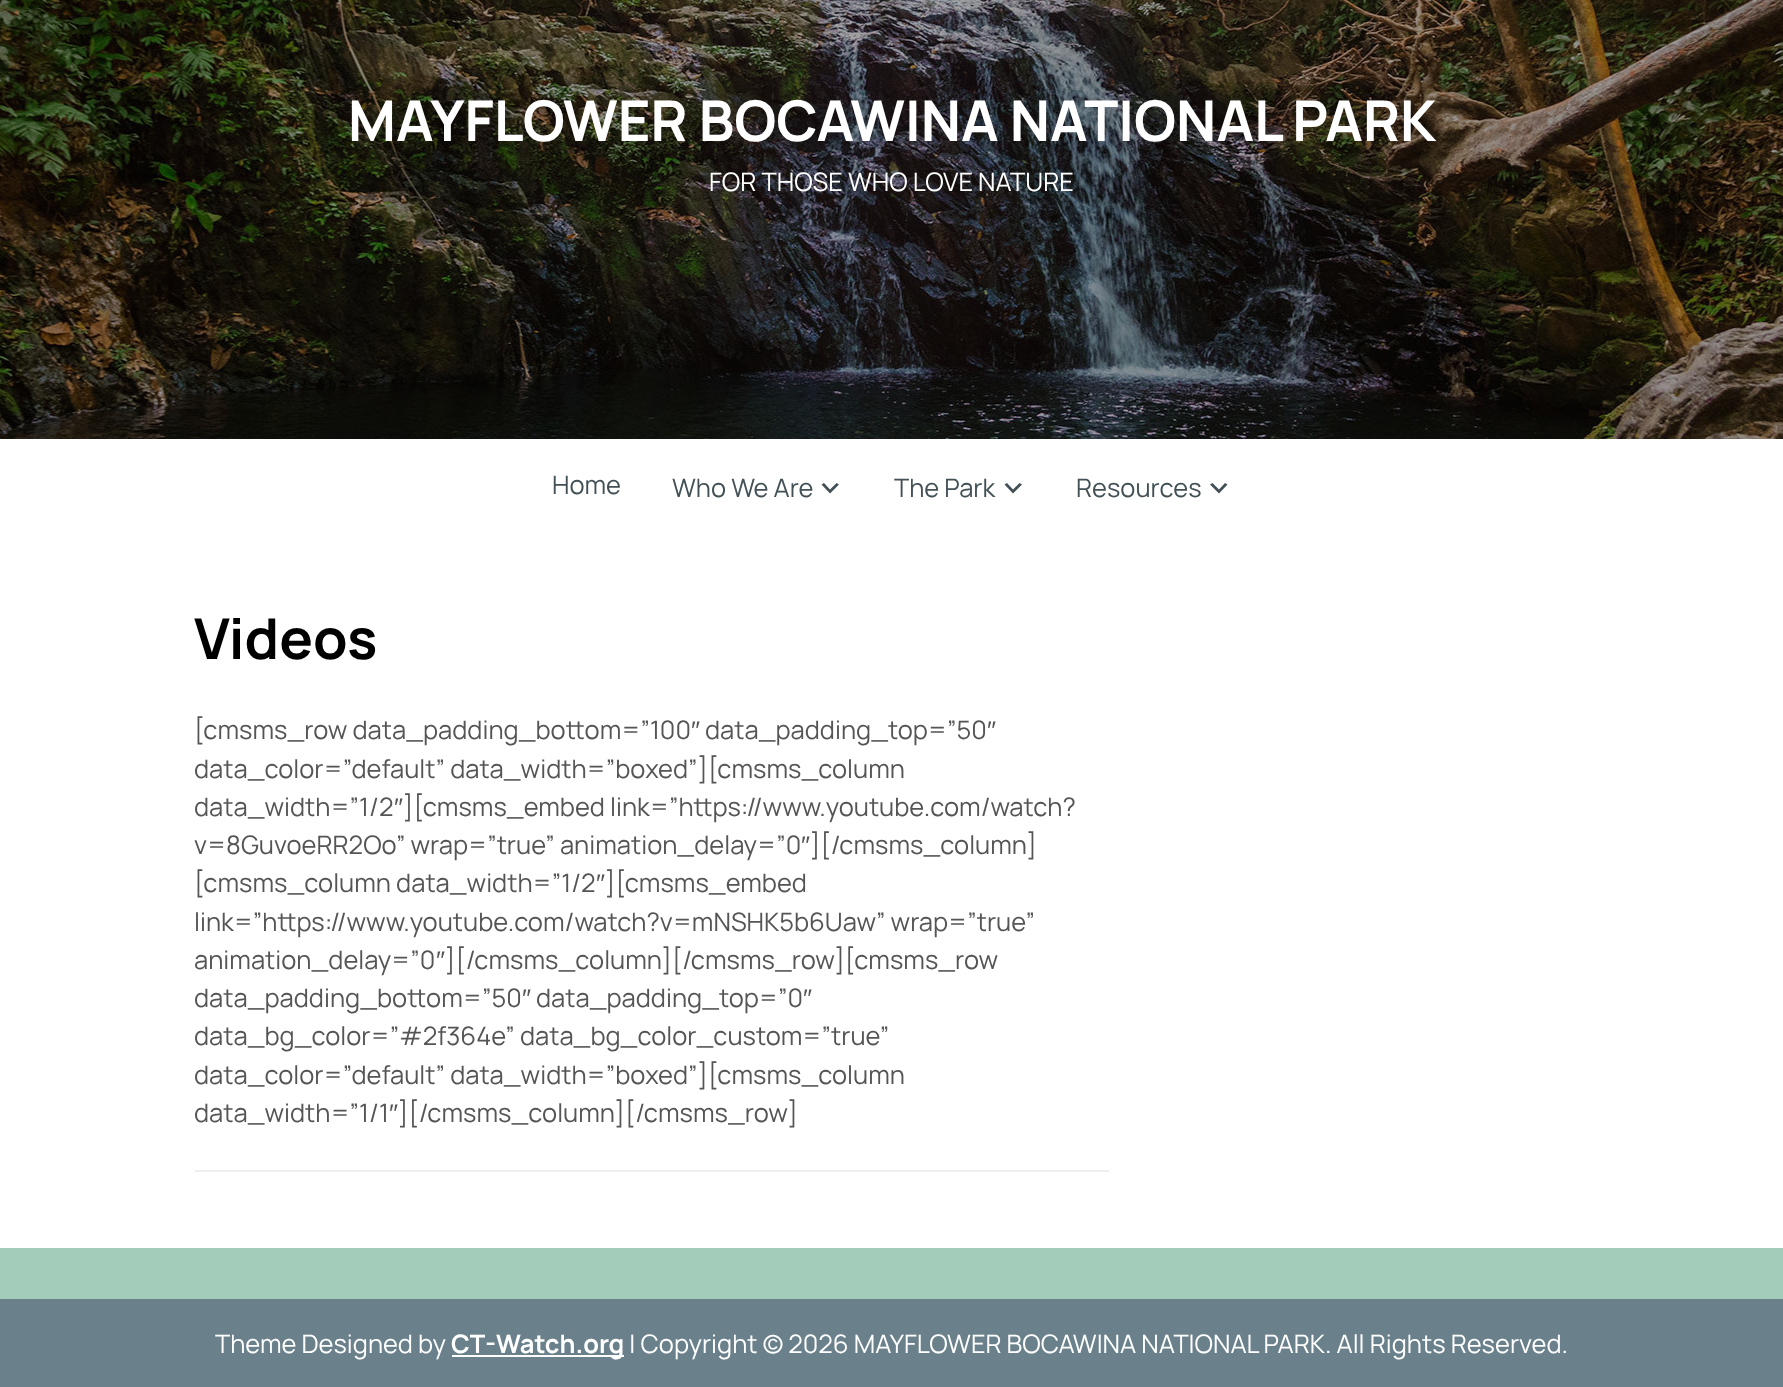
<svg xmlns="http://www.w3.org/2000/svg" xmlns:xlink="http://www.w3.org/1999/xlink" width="1783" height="1387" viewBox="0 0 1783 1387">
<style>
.cls-1{font:bold 56.1px Manrope;fill:#ffffff}
.cls-2{font:25.5px Manrope;fill:#ffffff}
.cls-3{font:25.5px Manrope;fill:#435156}
.cls-4{font:bold 56.1px Manrope;fill:#000000}
.cls-5{font:25.5px Manrope;fill:#555555}
.cls-6{font:25.5px Liberation Sans;fill:#555555}
.cls-7{font:bold 25.5px Manrope;fill:#ffffff}
</style>
<rect width="100%" height="100%" fill="#ffffff"/>
<image xlink:href="image0.png" x="0" y="0" width="1783" height="439"/>
<path fill="#435156" d="M824 483L830 489.5L836.5 483L839 484.5L830 493.5L821.5 484.5Z"/>
<path fill="#435156" d="M1007 483L1013 489.5L1019.5 483L1022 484.5L1013 493.5L1004.5 484.5Z"/>
<path fill="#435156" d="M1212.5 483L1219 489.5L1225 483L1227.5 484.5L1219 493.5L1210 484.5Z"/>
<rect fill="#eeeeee" x="195" y="1170" width="914" height="2"/>
<rect fill="#a3cdba" x="0" y="1248" width="1783" height="51"/>
<rect fill="#6a818b" x="0" y="1299" width="1783" height="88"/>
<rect fill="#ffffff" x="452" y="1355" width="172" height="2"/>
<text class="cls-1" x="348" y="141">MAYFLOWER BOCAWINA NATIONAL PARK</text>
<text class="cls-2" x="709" y="191">FOR THOSE WHO LOVE NATURE</text>
<text class="cls-3" x="552" y="494">Home</text>
<text class="cls-3" x="672" y="497">Who We Are</text>
<text class="cls-3" x="894" y="497">The Park</text>
<text class="cls-3" x="1076" y="497">Resources</text>
<text class="cls-4" x="194" y="659">Videos</text>
<text class="cls-5" x="194" y="739">[cmsms_row data_padding_bottom=”100</text>
<text class="cls-6" x="691" y="739">″</text>
<text class="cls-5" x="705" y="739">data_padding_top=”50</text>
<text class="cls-6" x="987" y="739">″</text>
<text class="cls-5"><tspan x="194" y="778">data_color=”default” data_width=”boxed”][cmsms_column</tspan><tspan x="194" y="816">data_width=”1/2</tspan></text>
<text class="cls-6" x="394" y="816">″</text>
<text class="cls-5" x="403" y="816">][cmsms_embed link=”https://www.youtube.com/watch?</text>
<text class="cls-5" x="194" y="854">v=8GuvoeRR2Oo” wrap=”true” animation_delay=”0</text>
<text class="cls-6" x="801" y="854">″</text>
<text class="cls-5" x="810" y="854">][/cmsms_column]</text>
<text class="cls-5" x="194" y="892">[cmsms_column data_width=”1/2</text>
<text class="cls-6" x="596" y="892">″</text>
<text class="cls-5" x="605" y="892">][cmsms_embed</text>
<text class="cls-5"><tspan x="194" y="931">link=”https://www.youtube.com/watch?v=mNSHK5b6Uaw” wrap=”true”</tspan><tspan x="194" y="969">animation_delay=”0</tspan></text>
<text class="cls-6" x="436" y="969">″</text>
<text class="cls-5" x="445" y="969">][/cmsms_column][/cmsms_row][cmsms_row</text>
<text class="cls-5" x="194" y="1007">data_padding_bottom=”50</text>
<text class="cls-6" x="522" y="1007">″</text>
<text class="cls-5" x="536" y="1007">data_padding_top=”0</text>
<text class="cls-6" x="803" y="1007">″</text>
<text class="cls-5"><tspan x="194" y="1045">data_bg_color=”#2f364e” data_bg_color_custom=”true”</tspan><tspan x="194" y="1084">data_color=”default” data_width=”boxed”][cmsms_column</tspan><tspan x="194" y="1122">data_width=”1/1</tspan></text>
<text class="cls-6" x="389" y="1122">″</text>
<text class="cls-5" x="398" y="1122">][/cmsms_column][/cmsms_row]</text>
<text class="cls-2" x="215" y="1353">Theme Designed by</text>
<text class="cls-7" x="451" y="1353">CT-Watch.org</text>
<text class="cls-2" x="629" y="1353">| Copyright © 2026 MAYFLOWER BOCAWINA NATIONAL PARK. All Rights Reserved.</text>
</svg>
